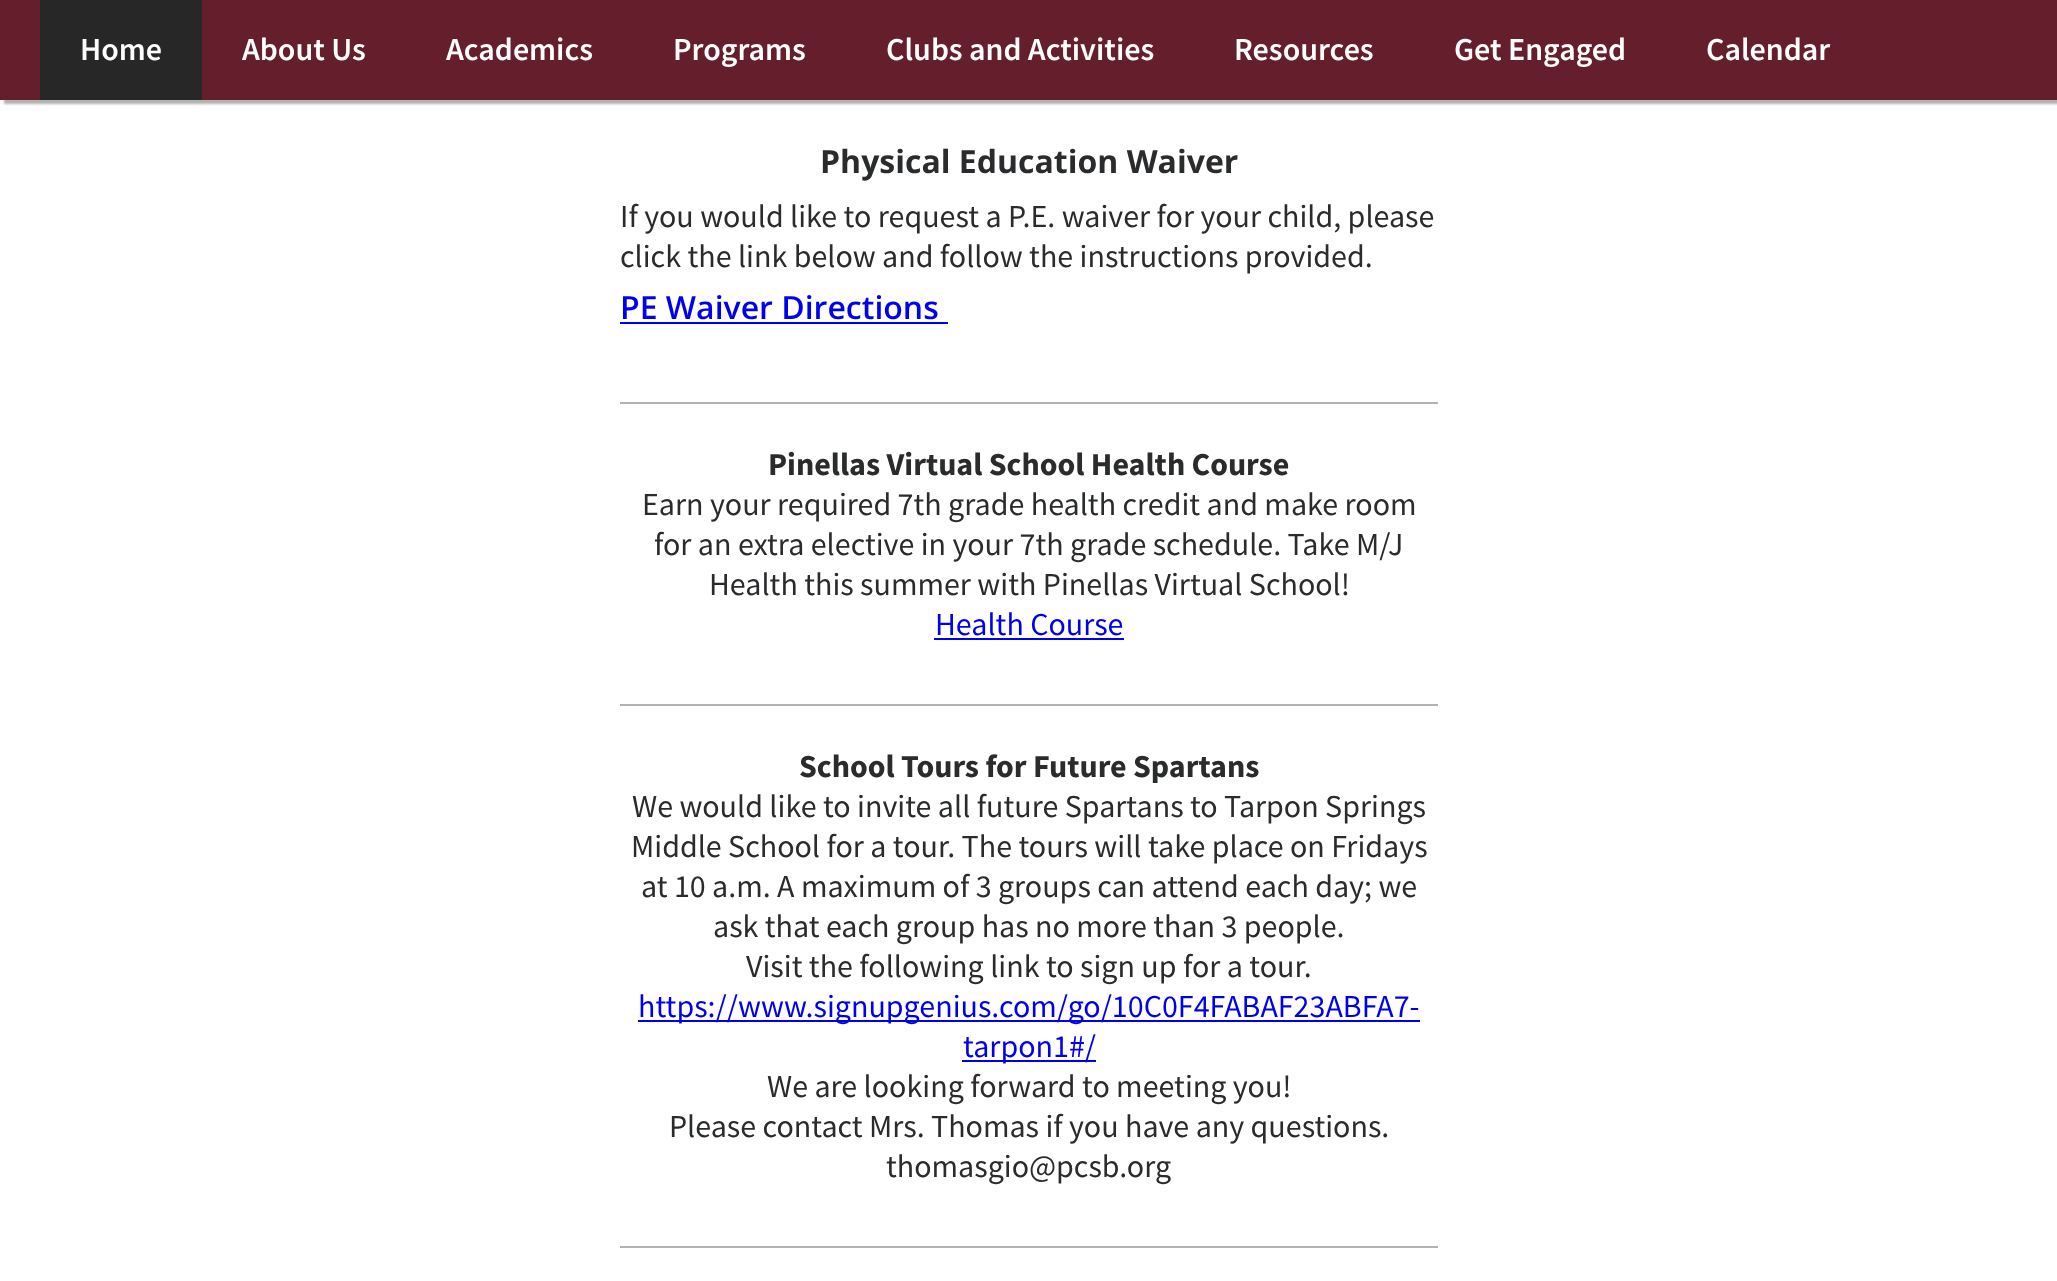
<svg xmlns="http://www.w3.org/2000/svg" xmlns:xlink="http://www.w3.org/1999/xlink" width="2057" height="1281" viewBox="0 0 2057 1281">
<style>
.cls-1{font:600 32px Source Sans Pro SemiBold;fill:#ffffff}
.cls-2{font:bold 32px Open Sans;fill:#2a2b2c}
.cls-3{font:32px Source Sans Pro;fill:#2a2b2c}
.cls-4{font:600 32px Open Sans;fill:#0000ee}
.cls-5{font:bold 32px Source Sans Pro;fill:#2a2b2c}
.cls-6{font:32px Source Sans Pro;fill:#0000ee}
</style>
<rect width="100%" height="100%" fill="#ffffff"/>
<rect fill="#000000" fill-opacity="0.3" filter="blur(1px)" x="4" y="4" width="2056" height="100"/>
<rect fill="#651e2c" x="0" y="0" width="2057" height="100"/>
<rect fill="#272727" x="40" y="0" width="162" height="100"/>
<rect fill="#b3b3b3" x="620" y="402" width="818" height="2"/>
<rect fill="#0000ee" x="620" y="322" width="328" height="2"/>
<rect fill="#b3b3b3" x="620" y="704" width="818" height="2"/>
<rect fill="#0000ee" x="934" y="638" width="190" height="2"/>
<rect fill="#b3b3b3" x="620" y="1246" width="818" height="2"/>
<rect fill="#0000ee" x="638" y="1020" width="782" height="2"/>
<rect fill="#0000ee" x="962" y="1060" width="134" height="2"/>
<text class="cls-1" x="80" y="60">Home</text>
<text class="cls-1" x="242" y="60">About Us</text>
<text class="cls-1" x="446" y="60">Academics</text>
<text class="cls-1" x="673" y="60">Programs</text>
<text class="cls-1" x="886" y="60">Clubs and Activities</text>
<text class="cls-1" x="1234" y="60">Resources</text>
<text class="cls-1" x="1454" y="60">Get Engaged</text>
<text class="cls-1" x="1706" y="60">Calendar</text>
<text class="cls-2" x="820" y="173">Physical Education Waiver</text>
<text class="cls-3"><tspan x="620" y="227">If you would like to request a P.E. waiver for your child, please</tspan><tspan x="620" y="267">click the link below and follow the instructions provided.</tspan></text>
<text class="cls-4" x="620" y="319">PE Waiver Directions</text>
<text class="cls-5" x="768" y="475">Pinellas Virtual School Health Course</text>
<text class="cls-3" x="642" y="515">Earn your required 7th grade health credit and make room</text>
<text class="cls-3" x="654" y="555">for an extra elective in your 7th grade schedule. Take M/J</text>
<text class="cls-3" x="709" y="595">Health this summer with Pinellas Virtual School!</text>
<text class="cls-6" x="935" y="635">Health Course</text>
<text class="cls-5" x="799" y="777">School Tours for Future Spartans</text>
<text class="cls-3" x="632" y="817">We would like to invite all future Spartans to Tarpon Springs</text>
<text class="cls-3" x="631" y="857">Middle School for a tour. The tours will take place on Fridays</text>
<text class="cls-3" x="641" y="897">at 10 a.m. A maximum of 3 groups can attend each day; we</text>
<text class="cls-3" x="713" y="937">ask that each group has no more than 3 people.</text>
<text class="cls-3" x="746" y="977">Visit the following link to sign up for a tour.</text>
<text class="cls-6" x="638" y="1017">https://www.signupgenius.com/go/10C0F4FABAF23ABFA7-</text>
<text class="cls-6" x="963" y="1057">tarpon1#/</text>
<text class="cls-3" x="767" y="1097">We are looking forward to meeting you!</text>
<text class="cls-3" x="669" y="1137">Please contact Mrs. Thomas if you have any questions.</text>
<text class="cls-3" x="886" y="1177">thomasgio@pcsb.org</text>
</svg>
